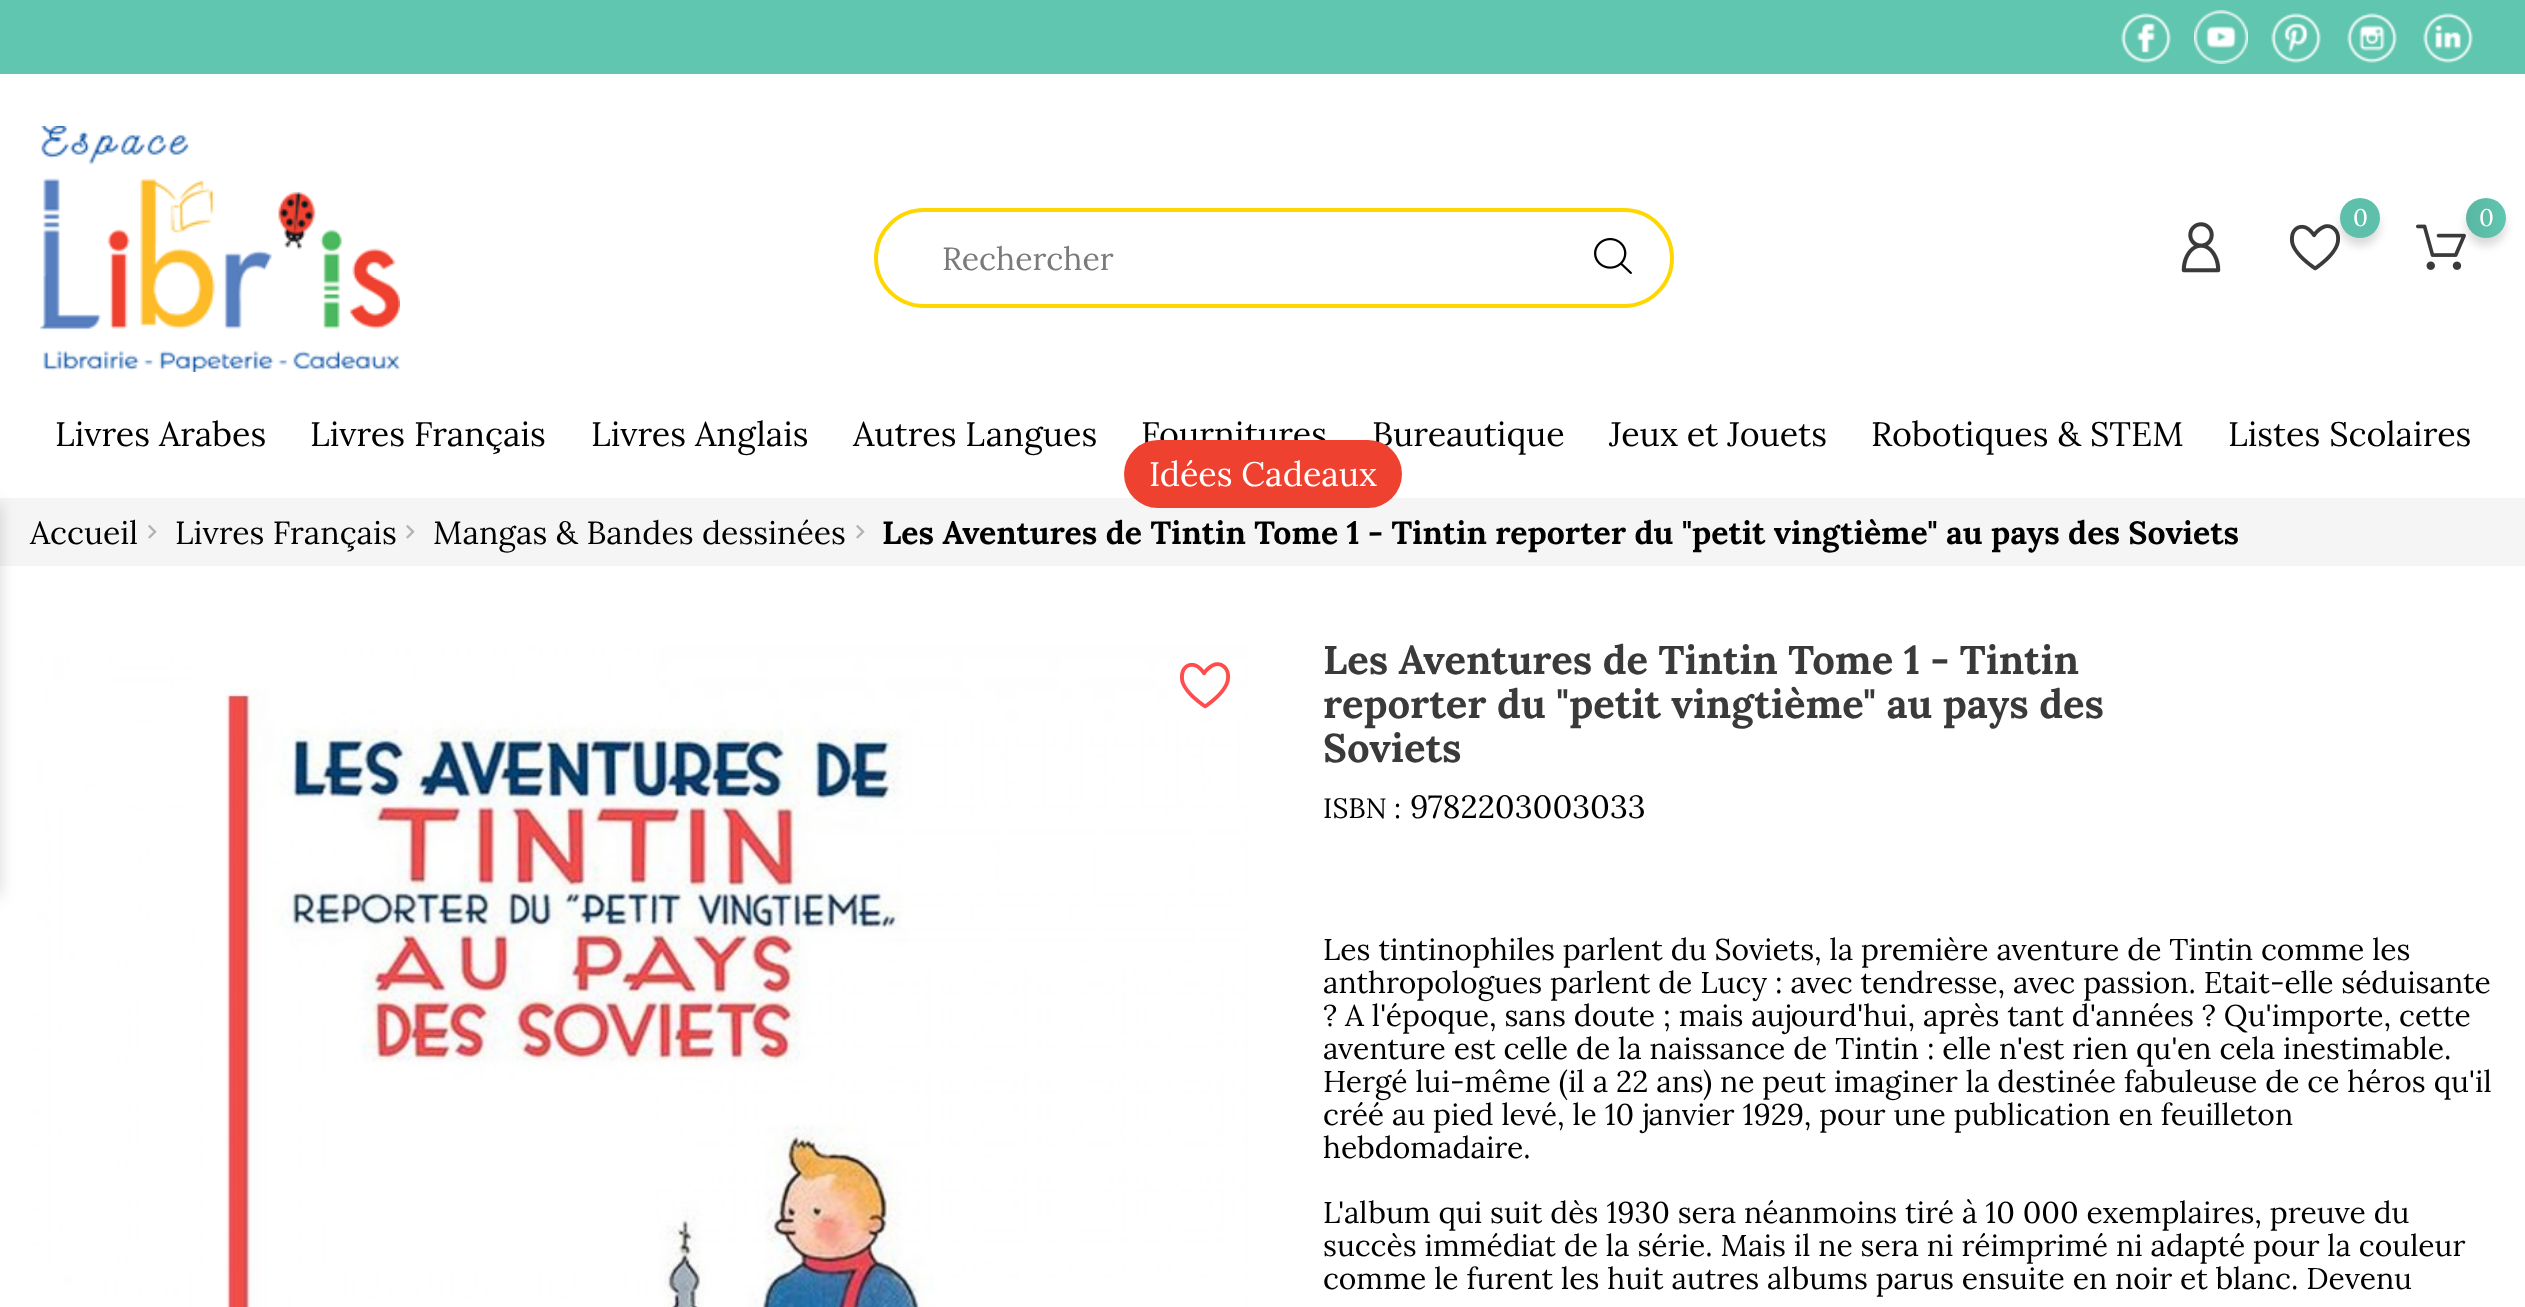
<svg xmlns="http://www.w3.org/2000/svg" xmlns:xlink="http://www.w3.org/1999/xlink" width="2525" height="1307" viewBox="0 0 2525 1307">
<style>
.cls-1{font:24px Lora;fill:#ffffff}
.cls-2{font:32px Lora;fill:#7a7a7a}
.cls-3{font:34px Lora;fill:#000000}
.cls-4{font:34px Lora;fill:#ffffff}
.cls-5{font:32px Lora;fill:#000000}
.cls-6{font:bold 32px Lora;fill:#000000}
.cls-7{font:bold 40px Lora;fill:#3a3a3a}
.cls-8{font:28px Lora;fill:#000000}
.cls-9{font:30px Lora;fill:#000000}
</style>
<defs>
<linearGradient id="g1" gradientUnits="userSpaceOnUse" x1="2466" y1="218" x2="2506" y2="218"><stop offset="0.01" stop-color="#5ab6a2"/><stop offset="0.99" stop-color="#60c6af"/></linearGradient>
</defs>
<rect width="100%" height="100%" fill="#ffffff"/>
<rect fill="#60c6af" x="0" y="0" width="2525" height="74"/>
<image xlink:href="image0.png" x="2121" y="13" width="50" height="50"/>
<image xlink:href="image1.png" x="2194" y="10" width="54" height="54"/>
<image xlink:href="image2.png" x="2271" y="13" width="50" height="50"/>
<image xlink:href="image3.png" x="2347" y="13" width="50" height="50"/>
<image xlink:href="image4.png" x="2423" y="13" width="50" height="50"/>
<image xlink:href="image5.png" x="40" y="126" width="360" height="246"/>
<image xlink:href="image6.png" x="2290" y="224" width="50" height="47"/>
<rect fill="#000000" fill-opacity="0.14" filter="blur(4px)" x="2340" y="206" width="40" height="40" rx="20"/>
<circle fill="#5ec0aa" cx="2360" cy="218" r="20"/>
<image xlink:href="image7.png" x="2416" y="224" width="50" height="46"/>
<rect fill="#000000" fill-opacity="0.14" filter="blur(4px)" x="2466" y="206" width="40" height="40" rx="20"/>
<circle fill="url(#g1)" cx="2486" cy="218" r="20"/>
<rect fill="none" stroke="#ffd700" stroke-width="4" x="876" y="210" width="796" height="96" rx="48"/>
<image xlink:href="image8.png" x="1594" y="238" width="38" height="36"/>
<image xlink:href="image9.png" x="2181" y="222" width="40" height="51"/>
<rect fill="#f5f5f5" x="0" y="498" width="2525" height="68"/>
<image xlink:href="image10.png" x="148" y="524" width="9" height="15"/>
<image xlink:href="image10.png" x="406" y="524" width="9" height="15"/>
<image xlink:href="image10.png" x="856" y="524" width="9" height="15"/>
<rect fill="#000000" fill-opacity="0.16" filter="blur(8px)" x="-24" y="504" width="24" height="392"/>
<image xlink:href="image11.png" x="30" y="646" width="1220" height="661"/>
<image xlink:href="image12.png" x="1180" y="662" width="50" height="47"/>
<text class="cls-1" x="2353" y="226">0</text>
<text class="cls-1" x="2479" y="226">0</text>
<text class="cls-2" x="942" y="270">Rechercher</text>
<text class="cls-3" x="55" y="446">Livres Arabes</text>
<text class="cls-3" x="310" y="446">Livres Français</text>
<text class="cls-3" x="591" y="446">Livres Anglais</text>
<text class="cls-3" x="853" y="446">Autres Langues</text>
<text class="cls-3" x="1141" y="446">Fournitures</text>
<text class="cls-3" x="1372" y="446">Bureautique</text>
<text class="cls-3" x="1609" y="446">Jeux et Jouets</text>
<text class="cls-3" x="1871" y="446">Robotiques &amp; STEM</text>
<text class="cls-3" x="2228" y="446">Listes Scolaires</text>
<rect fill="#ef4130" x="1124" y="440" width="278" height="68" rx="34"/>
<text class="cls-4" x="1149" y="486">Idées Cadeaux</text>
<text class="cls-5" x="30" y="544">Accueil</text>
<text class="cls-5" x="175" y="544">Livres Français</text>
<text class="cls-5" x="433" y="544">Mangas &amp; Bandes dessinées</text>
<text class="cls-6" x="882" y="544">Les Aventures de Tintin Tome 1 - Tintin reporter du "petit vingtième" au pays des Soviets</text>
<text class="cls-7"><tspan x="1323" y="674">Les Aventures de Tintin Tome 1 - Tintin</tspan><tspan x="1323" y="718">reporter du "petit vingtième" au pays des</tspan><tspan x="1323" y="762">Soviets</tspan></text>
<text class="cls-8" x="1323" y="818">ISBN :</text>
<text class="cls-5" x="1410" y="818">9782203003033</text>
<text class="cls-9"><tspan x="1323" y="960">Les tintinophiles parlent du Soviets, la première aventure de Tintin comme les</tspan><tspan x="1323" y="993">anthropologues parlent de Lucy : avec tendresse, avec passion. Etait-elle séduisante</tspan><tspan x="1323" y="1026">? A l'époque, sans doute ; mais aujourd'hui, après tant d'années ? Qu'importe, cette</tspan><tspan x="1323" y="1059">aventure est celle de la naissance de Tintin : elle n'est rien qu'en cela inestimable.</tspan><tspan x="1323" y="1092">Hergé lui-même (il a 22 ans) ne peut imaginer la destinée fabuleuse de ce héros qu'il</tspan><tspan x="1323" y="1125">créé au pied levé, le 10 janvier 1929, pour une publication en feuilleton</tspan><tspan x="1323" y="1158">hebdomadaire.</tspan></text>
<text class="cls-9"><tspan x="1323" y="1223">L'album qui suit dès 1930 sera néanmoins tiré à 10 000 exemplaires, preuve du</tspan><tspan x="1323" y="1256">succès immédiat de la série. Mais il ne sera ni réimprimé ni adapté pour la couleur</tspan><tspan x="1323" y="1289">comme le furent les huit autres albums parus ensuite en noir et blanc. Devenu</tspan></text>
</svg>
